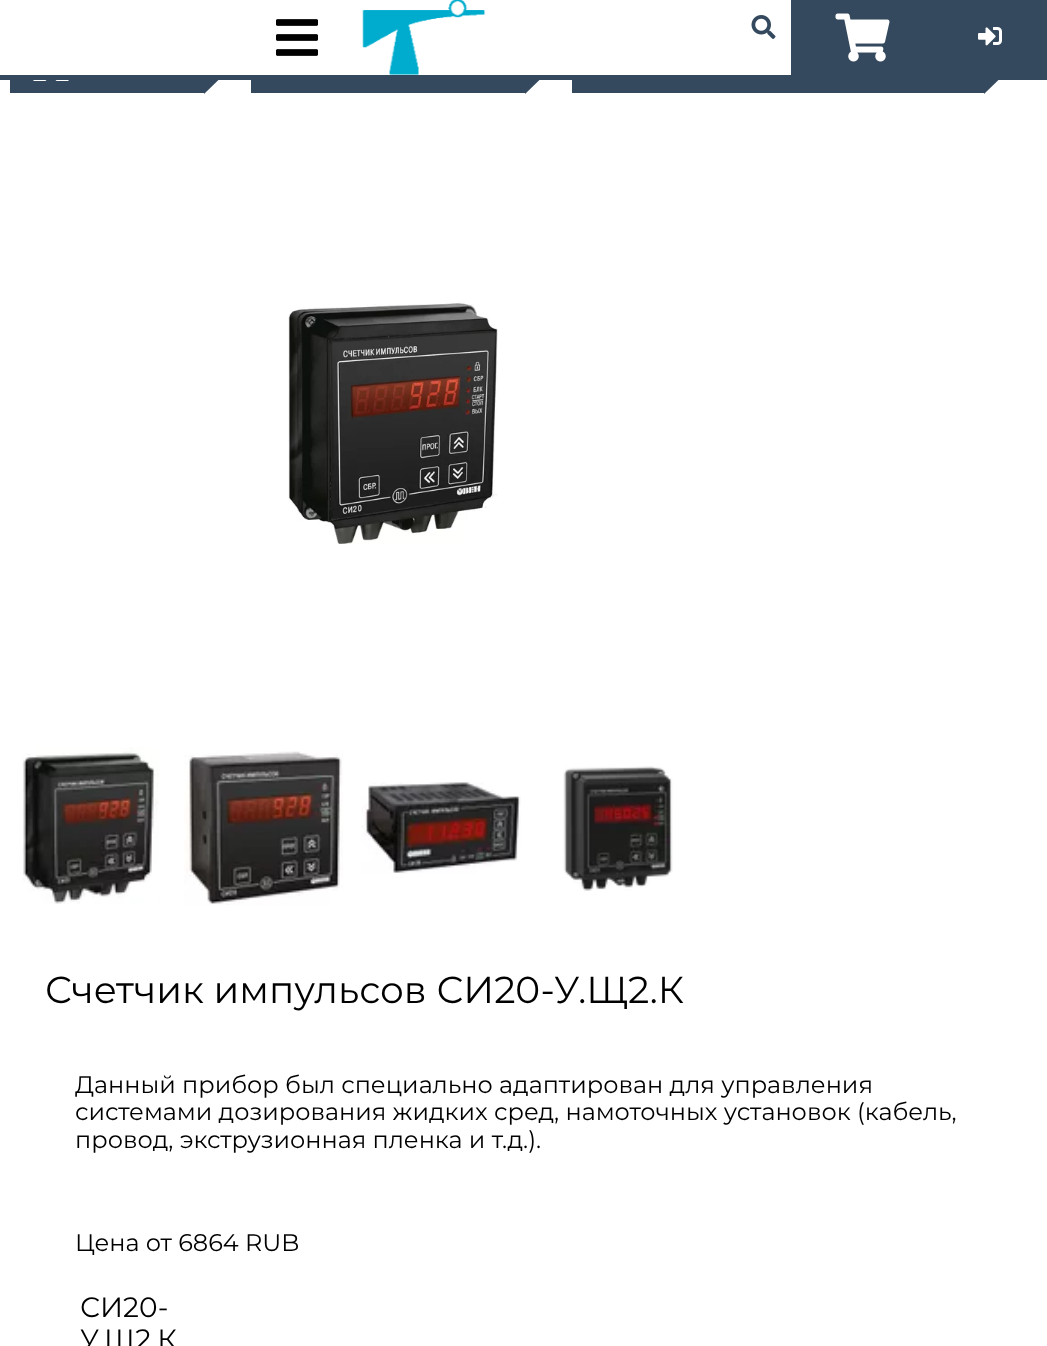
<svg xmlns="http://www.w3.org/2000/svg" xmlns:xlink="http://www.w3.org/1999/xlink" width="1047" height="1346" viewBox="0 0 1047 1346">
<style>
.cls-1{font:37.5px Montserrat;fill:#000000}
.cls-2{font:24px Montserrat;fill:#000000}
.cls-3{font:28px Montserrat;fill:#000000}
</style>
<rect width="100%" height="100%" fill="#ffffff"/>
<path fill="#34495e" d="M204 94V28L237 62Z"/>
<path fill="#34495e" d="M525 94V28L558 62Z"/>
<rect fill="#ffffff" x="204" y="28" width="354" height="47"/>
<path fill="#34495e" d="M984 94V28L1017 62Z"/>
<rect fill="#34495e" x="0" y="75" width="1047" height="5"/>
<image xlink:href="image0.png" x="276" y="19" width="42" height="37"/>
<image xlink:href="image1.png" x="362" y="0" width="124" height="75"/>
<image xlink:href="image2.png" x="751" y="15" width="25" height="24"/>
<rect fill="#34495e" x="791" y="0" width="256" height="75"/>
<image xlink:href="image3.png" x="835" y="13" width="55" height="49"/>
<image xlink:href="image4.png" x="978" y="27" width="24" height="19"/>
<rect fill="#34495e" x="10" y="80" width="194" height="13"/>
<image xlink:href="image5.png" x="33" y="80" width="36" height="1"/>
<rect fill="#34495e" x="251" y="80" width="274" height="13"/>
<rect fill="#34495e" x="572" y="80" width="412" height="13"/>
<image xlink:href="image6.png" x="288" y="301" width="210" height="243"/>
<image xlink:href="image7.png" x="22" y="747" width="137" height="157"/>
<image xlink:href="image8.png" x="184" y="751" width="159" height="154"/>
<image xlink:href="image9.png" x="361" y="782" width="160" height="92"/>
<image xlink:href="image10.png" x="563" y="766" width="110" height="125"/>
<text class="cls-1" x="45" y="1003">Счетчик импульсов СИ20-У.Щ2.К</text>
<text class="cls-2"><tspan x="75" y="1093">Данный прибор был специально адаптирован для управления</tspan><tspan x="75" y="1120">системами дозирования жидких сред, намоточных установок (кабель,</tspan><tspan x="75" y="1148">провод, экструзионная пленка и т.д.).</tspan></text>
<text class="cls-2" x="75" y="1251">Цена от 6864 RUB</text>
<text class="cls-3"><tspan x="80" y="1317">СИ20-</tspan><tspan x="80" y="1349">У.Щ2.К</tspan></text>
</svg>
